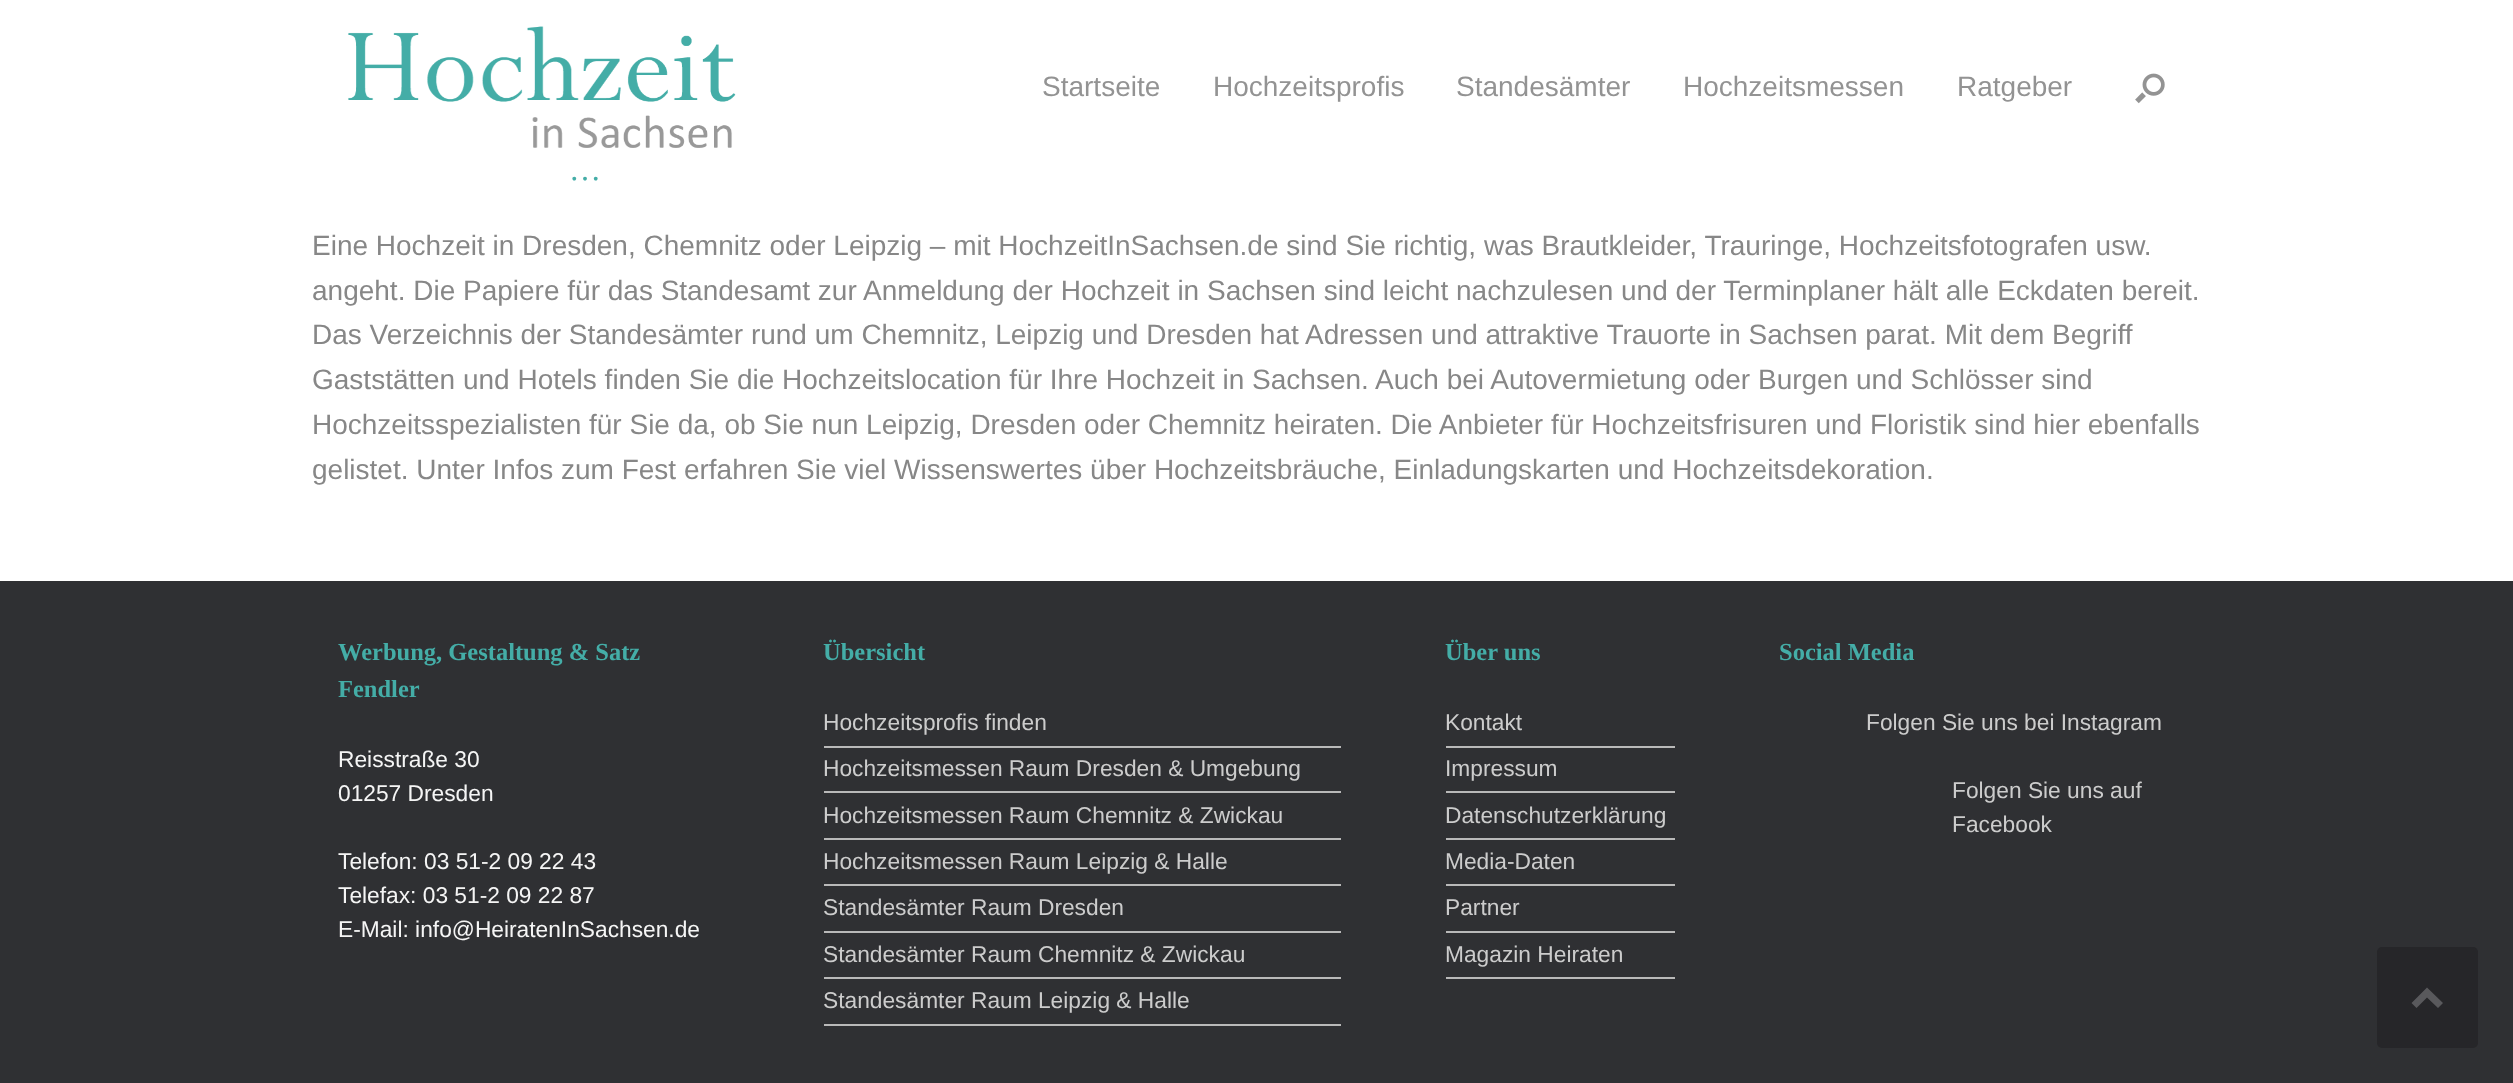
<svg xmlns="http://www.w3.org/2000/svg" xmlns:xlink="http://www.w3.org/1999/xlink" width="2513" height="1083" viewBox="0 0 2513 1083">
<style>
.cls-1{font:28px Liberation Sans;fill:#939393}
.cls-2{font:32px Liberation Serif;fill:#44ada7}
.cls-3{font:28px Liberation Sans;fill:#878787}
.cls-4{font:bold 24.5px Liberation Serif;fill:#44ada7}
.cls-5{font:22.75px Liberation Sans;fill:#f5f5f5}
.cls-6{font:22.75px Liberation Sans;fill:#cccccc}
</style>
<rect width="100%" height="100%" fill="#ffffff"/>
<image xlink:href="image0.png" x="348" y="26" width="388" height="122"/>
<image xlink:href="image1.png" x="2135" y="73" width="30" height="31"/>
<rect fill="#2f3033" x="0" y="581" width="2513" height="502"/>
<rect fill="#b9b9b9" x="824" y="746" width="517" height="2"/>
<rect fill="#b9b9b9" x="824" y="791" width="517" height="2"/>
<rect fill="#b9b9b9" x="824" y="838" width="517" height="2"/>
<rect fill="#b9b9b9" x="824" y="884" width="517" height="2"/>
<rect fill="#b9b9b9" x="824" y="931" width="517" height="2"/>
<rect fill="#b9b9b9" x="824" y="977" width="517" height="2"/>
<rect fill="#b9b9b9" x="824" y="1024" width="517" height="2"/>
<rect fill="#b9b9b9" x="1446" y="746" width="229" height="2"/>
<rect fill="#b9b9b9" x="1446" y="791" width="229" height="2"/>
<rect fill="#b9b9b9" x="1446" y="838" width="229" height="2"/>
<rect fill="#b9b9b9" x="1446" y="884" width="229" height="2"/>
<rect fill="#b9b9b9" x="1446" y="931" width="229" height="2"/>
<rect fill="#b9b9b9" x="1446" y="977" width="229" height="2"/>
<rect fill="#262629" x="2377" y="947" width="101" height="101" rx="5"/>
<path fill="#59595c" d="M2443 1003L2427 987.5L2411.5 1003L2416.5 1008L2427 997.5L2438 1008Z"/>
<text class="cls-1" x="1042" y="96">Startseite</text>
<text class="cls-1" x="1213" y="96">Hochzeitsprofis</text>
<text class="cls-1" x="1456" y="96">Standesämter</text>
<text class="cls-1" x="1683" y="96">Hochzeitsmessen</text>
<text class="cls-1" x="1957" y="96">Ratgeber</text>
<text class="cls-2" x="569" y="180">…</text>
<text class="cls-3"><tspan x="312" y="255">Eine Hochzeit in Dresden, Chemnitz oder Leipzig – mit HochzeitInSachsen.de sind Sie richtig, was Brautkleider, Trauringe, Hochzeitsfotografen usw.</tspan><tspan x="312" y="300">angeht. Die Papiere für das Standesamt zur Anmeldung der Hochzeit in Sachsen sind leicht nachzulesen und der Terminplaner hält alle Eckdaten bereit.</tspan><tspan x="312" y="344">Das Verzeichnis der Standesämter rund um Chemnitz, Leipzig und Dresden hat Adressen und attraktive Trauorte in Sachsen parat. Mit dem Begriff</tspan><tspan x="312" y="389">Gaststätten und Hotels finden Sie die Hochzeitslocation für Ihre Hochzeit in Sachsen. Auch bei Autovermietung oder Burgen und Schlösser sind</tspan><tspan x="312" y="434">Hochzeitsspezialisten für Sie da, ob Sie nun Leipzig, Dresden oder Chemnitz heiraten. Die Anbieter für Hochzeitsfrisuren und Floristik sind hier ebenfalls</tspan><tspan x="312" y="479">gelistet. Unter Infos zum Fest erfahren Sie viel Wissenswertes über Hochzeitsbräuche, Einladungskarten und Hochzeitsdekoration.</tspan></text>
<text class="cls-4"><tspan x="338" y="660">Werbung, Gestaltung &amp; Satz</tspan><tspan x="338" y="697">Fendler</tspan></text>
<text class="cls-5"><tspan x="338" y="767">Reisstraße 30</tspan><tspan x="338" y="801">01257 Dresden</tspan></text>
<text class="cls-5"><tspan x="338" y="869">Telefon: 03 51-2 09 22 43</tspan><tspan x="338" y="903">Telefax: 03 51-2 09 22 87</tspan><tspan x="338" y="937">E-Mail: info@HeiratenInSachsen.de</tspan></text>
<text class="cls-4" x="823" y="660">Übersicht</text>
<text class="cls-6" x="823" y="730">Hochzeitsprofis finden</text>
<text class="cls-6" x="823" y="776">Hochzeitsmessen Raum Dresden &amp; Umgebung</text>
<text class="cls-6" x="823" y="823">Hochzeitsmessen Raum Chemnitz &amp; Zwickau</text>
<text class="cls-6" x="823" y="869">Hochzeitsmessen Raum Leipzig &amp; Halle</text>
<text class="cls-6" x="823" y="915">Standesämter Raum Dresden</text>
<text class="cls-6" x="823" y="962">Standesämter Raum Chemnitz &amp; Zwickau</text>
<text class="cls-6" x="823" y="1008">Standesämter Raum Leipzig &amp; Halle</text>
<text class="cls-4" x="1445" y="660">Über uns</text>
<text class="cls-6" x="1445" y="730">Kontakt</text>
<text class="cls-6" x="1445" y="776">Impressum</text>
<text class="cls-6" x="1445" y="823">Datenschutzerklärung</text>
<text class="cls-6" x="1445" y="869">Media-Daten</text>
<text class="cls-6" x="1445" y="915">Partner</text>
<text class="cls-6" x="1445" y="962">Magazin Heiraten</text>
<text class="cls-4" x="1779" y="660">Social Media</text>
<text class="cls-6" x="1866" y="730">Folgen Sie uns bei Instagram</text>
<text class="cls-6"><tspan x="1952" y="798">Folgen Sie uns auf</tspan><tspan x="1952" y="832">Facebook</tspan></text>
</svg>
